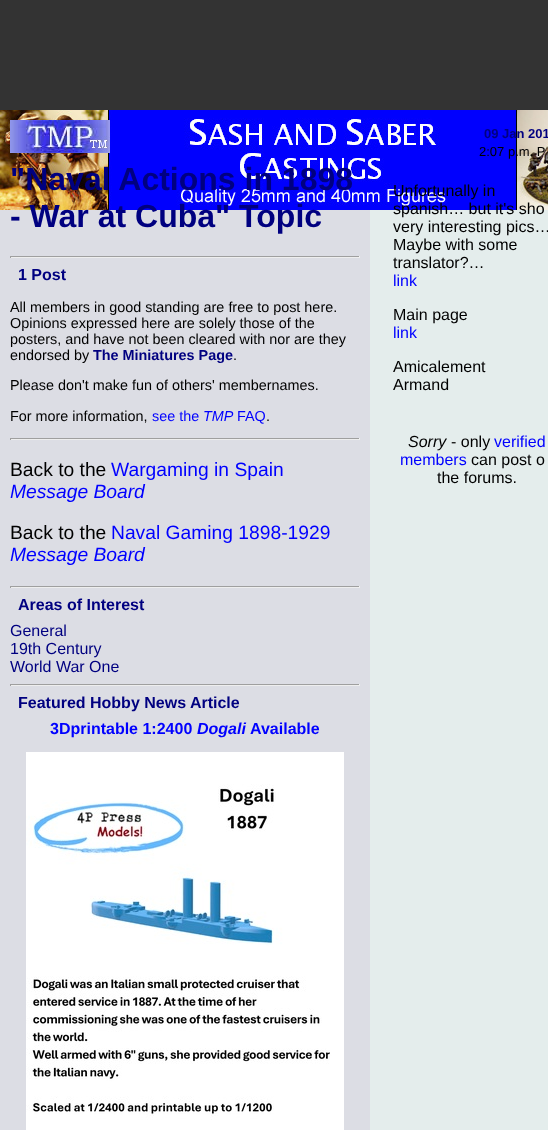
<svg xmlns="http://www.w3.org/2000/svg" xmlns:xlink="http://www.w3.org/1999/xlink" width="548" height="1130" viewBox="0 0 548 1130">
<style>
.cls-1{font:bold 32px Liberation Sans;fill:#000080}
.cls-2{font:bold 16px Liberation Sans;fill:#000080}
.cls-3{font:14.4px Liberation Sans;fill:#000000}
.cls-4{font:bold 14.4px Liberation Sans;fill:#000080}
.cls-5{font:14.4px Liberation Sans;fill:#0000ff}
.cls-6{font:italic 14.4px Liberation Sans;fill:#0000ff}
.cls-7{font:19.25px Liberation Sans;fill:#000000}
.cls-8{font:19.25px Liberation Sans;fill:#0000ff}
.cls-9{font:italic 19.25px Liberation Sans;fill:#0000ff}
.cls-10{font:16px Liberation Sans;fill:#000080}
.cls-11{font:bold 16px Liberation Sans;fill:#0000ff}
.cls-12{font:italic bold 16px Liberation Sans;fill:#0000ff}
.cls-13{font:bold 13px Liberation Sans;fill:#000080}
.cls-14{font:13px Liberation Sans;fill:#000000}
.cls-15{font:16px Liberation Sans;fill:#000000}
.cls-16{font:16px Liberation Sans;fill:#0000ff}
.cls-17{font:italic 16px Liberation Sans;fill:#000000}
</style>
<rect width="100%" height="100%" fill="#e4edec"/>
<rect fill="#333333" x="0" y="0" width="548" height="110"/>
<image xlink:href="image0.png" x="0" y="110" width="548" height="100"/>
<rect fill="#dcdde4" x="0" y="210" width="370" height="920"/>
<image xlink:href="image1.png" x="10" y="120" width="100" height="33"/>
<rect fill="#9f9f9f" x="10" y="256" width="350" height="1"/>
<rect fill="#eeeeee" x="359" y="256" width="1" height="2"/>
<rect fill="#eeeeee" x="10" y="257" width="350" height="1"/>
<rect fill="#9f9f9f" x="10" y="256" width="1" height="2"/>
<rect fill="#9f9f9f" x="10" y="438" width="350" height="1"/>
<rect fill="#eeeeee" x="359" y="438" width="1" height="2"/>
<rect fill="#eeeeee" x="10" y="439" width="350" height="1"/>
<rect fill="#9f9f9f" x="10" y="438" width="1" height="2"/>
<rect fill="#9f9f9f" x="10" y="586" width="350" height="1"/>
<rect fill="#eeeeee" x="359" y="586" width="1" height="2"/>
<rect fill="#eeeeee" x="10" y="587" width="350" height="1"/>
<rect fill="#9f9f9f" x="10" y="586" width="1" height="2"/>
<rect fill="#9f9f9f" x="10" y="684" width="350" height="1"/>
<rect fill="#eeeeee" x="359" y="684" width="1" height="2"/>
<rect fill="#eeeeee" x="10" y="685" width="350" height="1"/>
<rect fill="#9f9f9f" x="10" y="684" width="1" height="2"/>
<image xlink:href="image2.png" x="26" y="752" width="318" height="378"/>
<text class="cls-1"><tspan x="10" y="190">"Naval Actions in 1898</tspan><tspan x="10" y="227">- War at Cuba" Topic</tspan></text>
<text class="cls-2" x="18" y="280">1 Post</text>
<text class="cls-3"><tspan x="10" y="312">All members in good standing are free to post here.</tspan><tspan x="10" y="328">Opinions expressed here are solely those of the</tspan><tspan x="10" y="344">posters, and have not been cleared with nor are they</tspan><tspan x="10" y="360">endorsed by</tspan></text>
<text class="cls-4" x="93" y="360">The Miniatures Page</text>
<text class="cls-3" x="233" y="360">.</text>
<text class="cls-3" x="10" y="390">Please don't make fun of others' membernames.</text>
<text class="cls-3" x="10" y="421">For more information,</text>
<text class="cls-5" x="152" y="421">see the</text>
<text class="cls-6" x="203" y="421">TMP</text>
<text class="cls-5" x="237" y="421">FAQ</text>
<text class="cls-3" x="266" y="421">.</text>
<text class="cls-7" x="10" y="476">Back to the</text>
<text class="cls-8" x="111" y="476">Wargaming in Spain</text>
<text class="cls-9" x="10" y="498">Message Board</text>
<text class="cls-7" x="10" y="539">Back to the</text>
<text class="cls-8" x="111" y="539">Naval Gaming 1898-1929</text>
<text class="cls-9" x="10" y="561">Message Board</text>
<text class="cls-2" x="18" y="610">Areas of Interest</text>
<text class="cls-10"><tspan x="10" y="636">General</tspan><tspan x="10" y="654">19th Century</tspan><tspan x="10" y="672">World War One</tspan></text>
<text class="cls-2" x="18" y="708">Featured Hobby News Article</text>
<text class="cls-11" x="50" y="734">3Dprintable 1:2400</text>
<text class="cls-12" x="197" y="734">Dogali</text>
<text class="cls-11" x="250" y="734">Available</text>
<text class="cls-13" x="484" y="138">09 Jan 201</text>
<text class="cls-14" x="479" y="156">2:07 p.m. P</text>
<text class="cls-15"><tspan x="393" y="196">Unfortunally in</tspan><tspan x="393" y="214">spanish… but it's sho</tspan><tspan x="393" y="232">very interesting pics…</tspan><tspan x="393" y="250">Maybe with some</tspan><tspan x="393" y="268">translator?…</tspan></text>
<text class="cls-16" x="393" y="286">link</text>
<text class="cls-15" x="393" y="320">Main page</text>
<text class="cls-16" x="393" y="338">link</text>
<text class="cls-15"><tspan x="393" y="372">Amicalement</tspan><tspan x="393" y="390">Armand</tspan></text>
<text class="cls-17" x="408" y="447">Sorry</text>
<text class="cls-15" x="451" y="447">- only</text>
<text class="cls-16" x="494" y="447">verified</text>
<text class="cls-16" x="400" y="465">members</text>
<text class="cls-15" x="471" y="465">can post o</text>
<text class="cls-15" x="437" y="483">the forums.</text>
</svg>
